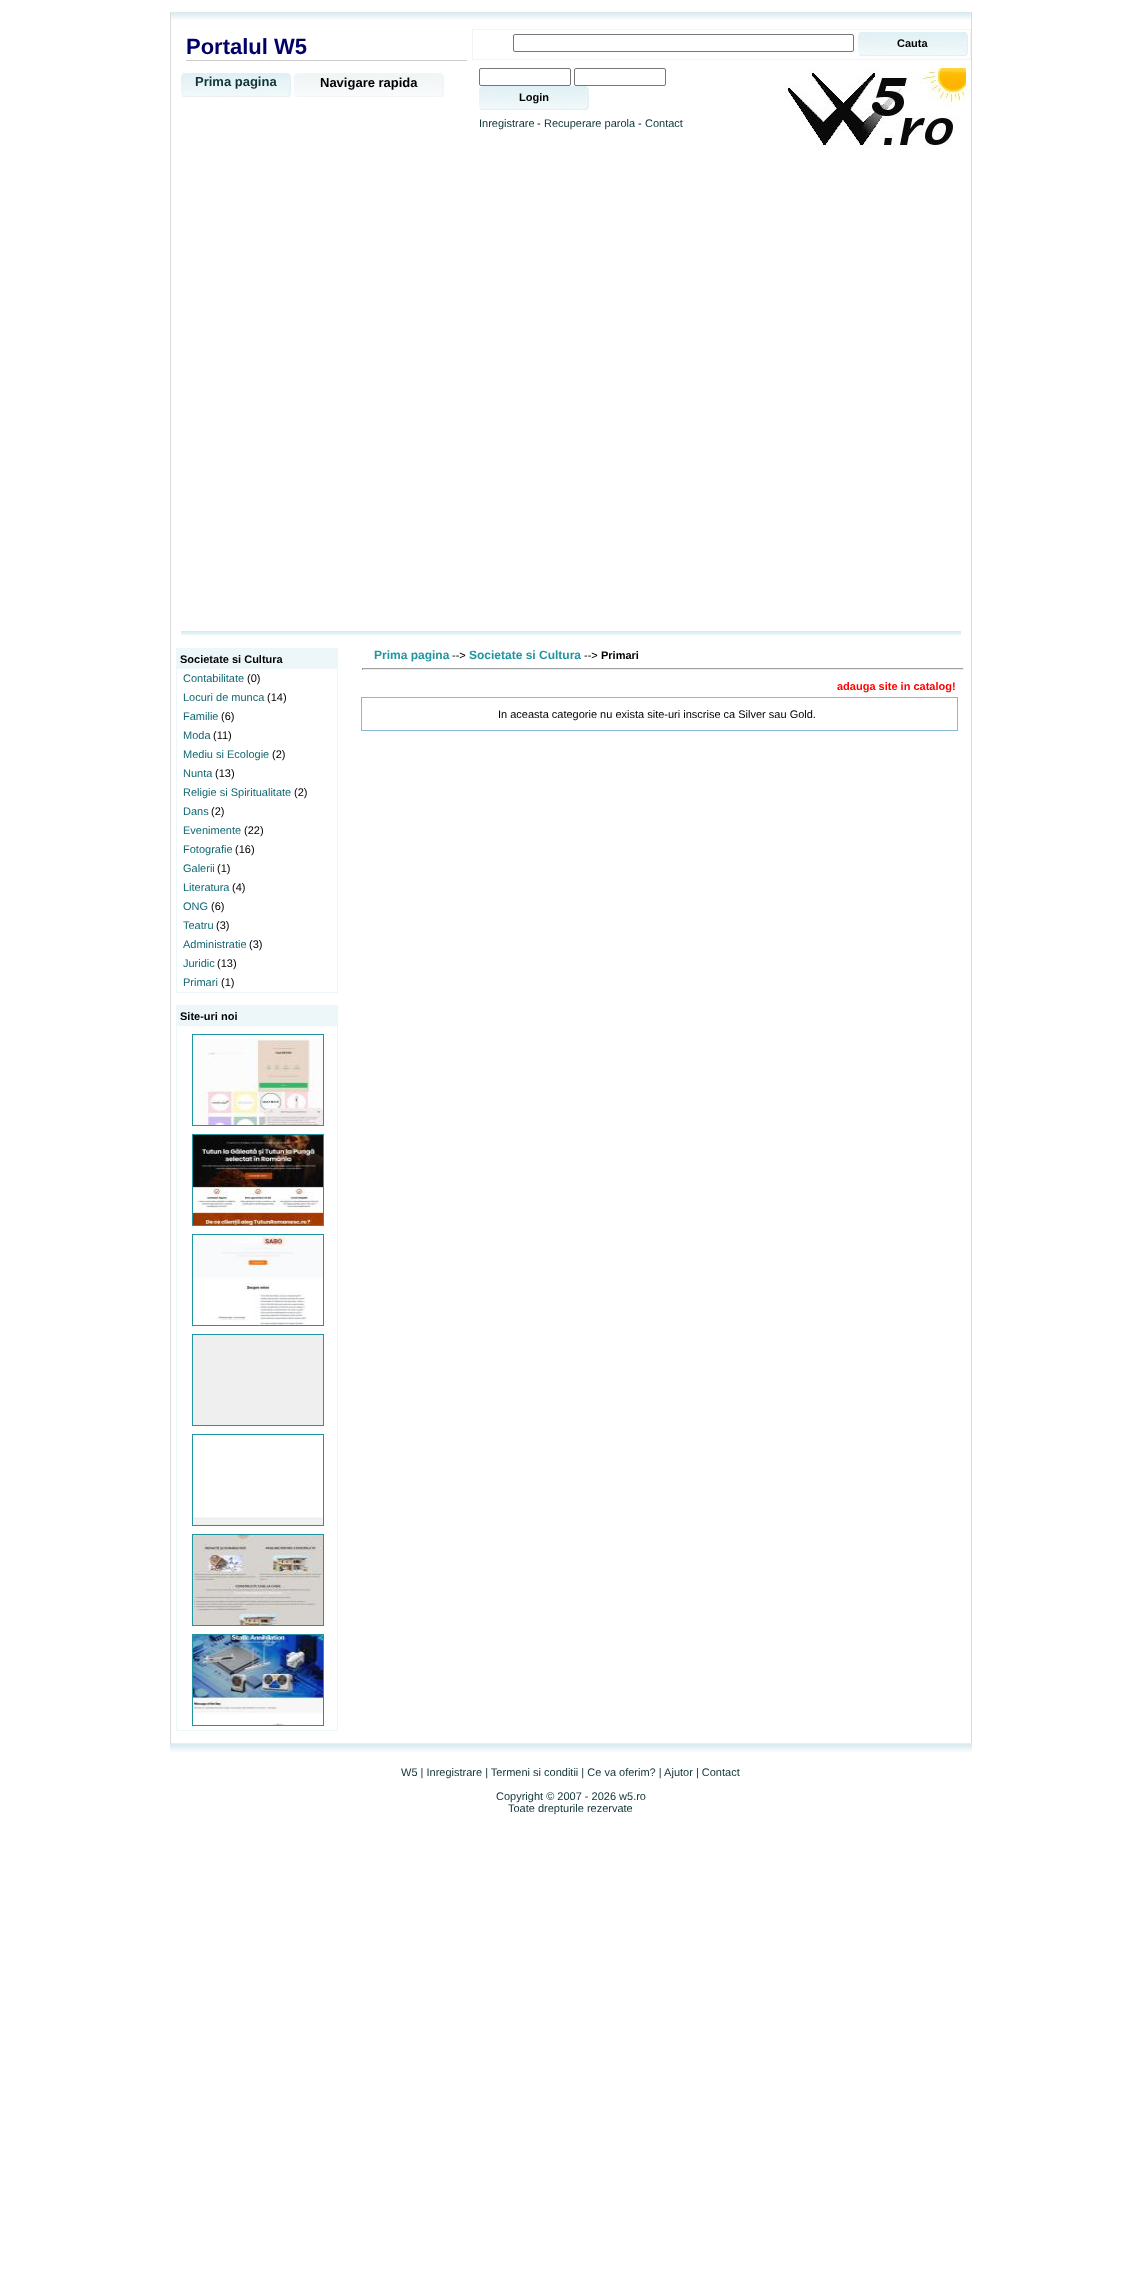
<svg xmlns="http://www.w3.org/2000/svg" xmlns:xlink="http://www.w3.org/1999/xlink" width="1141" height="2287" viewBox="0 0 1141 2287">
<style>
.cls-1{font:bold 22px Liberation Sans;fill:#000066}
.cls-2{font:bold 13px Liberation Sans;fill:#0f3337}
.cls-3{font:bold 13px Liberation Sans;fill:#000000}
.cls-4{font:bold 11px Liberation Sans;fill:#000000}
.cls-5{font:11px Liberation Sans;fill:#0f3337}
.cls-6{font:11px Liberation Sans;fill:#000000}
.cls-7{font:11px Liberation Sans;fill:#116872}
.cls-8{font:bold 12px Liberation Sans;fill:#2095a2}
.cls-9{font:bold 11px Liberation Sans;fill:#ff0000}
</style>
<rect width="100%" height="100%" fill="#ffffff"/>
<rect fill="#dbdbdb" x="971" y="12" width="1" height="1732"/>
<rect fill="#e1f0f5" x="170" y="1743" width="802" height="1"/>
<rect fill="#dbdbdb" x="170" y="12" width="1" height="1732"/>
<image xlink:href="image0.png" x="171" y="12" width="800" height="8"/>
<rect fill="#cccccc" x="186" y="60" width="281" height="1"/>
<image xlink:href="image1.png" x="181" y="73" width="110" height="24"/>
<image xlink:href="image2.png" x="294" y="73" width="150" height="24"/>
<rect fill="none" stroke="#f3f3f3" x="472.5" y="29.5" width="498" height="30"/>
<rect fill="none" stroke="#767676" x="513.5" y="34.5" width="340" height="17" rx="1.5"/>
<image xlink:href="image3.png" x="858" y="32" width="110" height="25"/>
<rect fill="none" stroke="#767676" x="479.5" y="68.5" width="91" height="17" rx="1.5"/>
<rect fill="none" stroke="#767676" x="574.5" y="68.5" width="91" height="17" rx="1.5"/>
<image xlink:href="image3.png" x="479" y="86" width="110" height="25"/>
<image xlink:href="image4.png" x="784" y="68" width="182" height="80"/>
<image xlink:href="image5.png" x="181" y="631" width="780" height="4"/>
<rect fill="none" stroke="#edf7f9" x="176.5" y="648.5" width="161" height="344"/>
<rect fill="#edf7f9" x="177" y="649" width="160" height="20"/>
<rect fill="none" stroke="#edf7f9" x="176.5" y="1005.5" width="161" height="725"/>
<rect fill="#edf7f9" x="177" y="1006" width="160" height="20"/>
<rect fill="none" stroke="#2095a2" x="192.5" y="1034.5" width="131" height="91"/>
<image xlink:href="image6.png" x="193" y="1035" width="130" height="90"/>
<rect fill="none" stroke="#2095a2" x="192.5" y="1134.5" width="131" height="91"/>
<image xlink:href="image7.png" x="193" y="1135" width="130" height="90"/>
<rect fill="none" stroke="#2095a2" x="192.5" y="1234.5" width="131" height="91"/>
<image xlink:href="image8.png" x="193" y="1235" width="130" height="90"/>
<rect fill="none" stroke="#2095a2" x="192.5" y="1334.5" width="131" height="91"/>
<rect fill="#efefef" x="193" y="1335" width="130" height="90"/>
<rect fill="none" stroke="#2095a2" x="192.5" y="1434.5" width="131" height="91"/>
<image xlink:href="image9.png" x="193" y="1517" width="130" height="8"/>
<rect fill="none" stroke="#2095a2" x="192.5" y="1534.5" width="131" height="91"/>
<image xlink:href="image10.png" x="193" y="1535" width="130" height="90"/>
<rect fill="none" stroke="#2095a2" x="192.5" y="1634.5" width="131" height="91"/>
<image xlink:href="image11.png" x="193" y="1635" width="130" height="90"/>
<rect fill="#9f9f9f" x="362" y="668" width="602" height="1"/>
<rect fill="#eeeeee" x="963" y="668" width="1" height="2"/>
<rect fill="#eeeeee" x="362" y="669" width="602" height="1"/>
<rect fill="#9f9f9f" x="362" y="668" width="1" height="2"/>
<rect fill="none" stroke="#88b9d0" x="361.5" y="697.5" width="596" height="33"/>
<image xlink:href="image12.png" x="170" y="1744" width="802" height="8"/>
<text class="cls-1" x="186" y="54">Portalul W5</text>
<text class="cls-2" x="195" y="86">Prima pagina</text>
<text class="cls-3" x="320" y="87">Navigare rapida</text>
<text class="cls-4" x="897" y="47">Cauta</text>
<text class="cls-4" x="519" y="101">Login</text>
<text class="cls-5" x="479" y="127">Inregistrare</text>
<text class="cls-6" x="537" y="127">-</text>
<text class="cls-5" x="544" y="127">Recuperare parola</text>
<text class="cls-6" x="638" y="127">-</text>
<text class="cls-5" x="645" y="127">Contact</text>
<text class="cls-4" x="180" y="663">Societate si Cultura</text>
<text class="cls-7" x="183" y="682">Contabilitate</text>
<text class="cls-6" x="247" y="682">(0)</text>
<text class="cls-7" x="183" y="701">Locuri de munca</text>
<text class="cls-6" x="267" y="701">(14)</text>
<text class="cls-7" x="183" y="720">Familie</text>
<text class="cls-6" x="221" y="720">(6)</text>
<text class="cls-7" x="183" y="739">Moda</text>
<text class="cls-6" x="213" y="739">(11)</text>
<text class="cls-7" x="183" y="758">Mediu si Ecologie</text>
<text class="cls-6" x="272" y="758">(2)</text>
<text class="cls-7" x="183" y="777">Nunta</text>
<text class="cls-6" x="215" y="777">(13)</text>
<text class="cls-7" x="183" y="796">Religie si Spiritualitate</text>
<text class="cls-6" x="294" y="796">(2)</text>
<text class="cls-7" x="183" y="815">Dans</text>
<text class="cls-6" x="211" y="815">(2)</text>
<text class="cls-7" x="183" y="834">Evenimente</text>
<text class="cls-6" x="244" y="834">(22)</text>
<text class="cls-7" x="183" y="853">Fotografie</text>
<text class="cls-6" x="235" y="853">(16)</text>
<text class="cls-7" x="183" y="872">Galerii</text>
<text class="cls-6" x="217" y="872">(1)</text>
<text class="cls-7" x="183" y="891">Literatura</text>
<text class="cls-6" x="232" y="891">(4)</text>
<text class="cls-7" x="183" y="910">ONG</text>
<text class="cls-6" x="211" y="910">(6)</text>
<text class="cls-7" x="183" y="929">Teatru</text>
<text class="cls-6" x="216" y="929">(3)</text>
<text class="cls-7" x="183" y="948">Administratie</text>
<text class="cls-6" x="249" y="948">(3)</text>
<text class="cls-7" x="183" y="967">Juridic</text>
<text class="cls-6" x="217" y="967">(13)</text>
<text class="cls-7" x="183" y="986">Primari</text>
<text class="cls-6" x="221" y="986">(1)</text>
<text class="cls-4" x="180" y="1020">Site-uri noi</text>
<text class="cls-8" x="374" y="659">Prima pagina</text>
<text class="cls-6" x="452" y="659">--&gt;</text>
<text class="cls-8" x="469" y="659">Societate si Cultura</text>
<text class="cls-6" x="584" y="659">--&gt;</text>
<text class="cls-4" x="601" y="659">Primari</text>
<text class="cls-9" x="837" y="690">adauga site in catalog!</text>
<text class="cls-6" x="498" y="718">In aceasta categorie nu exista site-uri inscrise ca Silver sau Gold.</text>
<text class="cls-5" x="401" y="1776">W5 | Inregistrare | Termeni si conditii | Ce va oferim? | Ajutor | Contact</text>
<text class="cls-5" x="496" y="1800">Copyright © 2007 - 2026 w5.ro</text>
<text class="cls-5" x="508" y="1812">Toate drepturile rezervate</text>
</svg>
